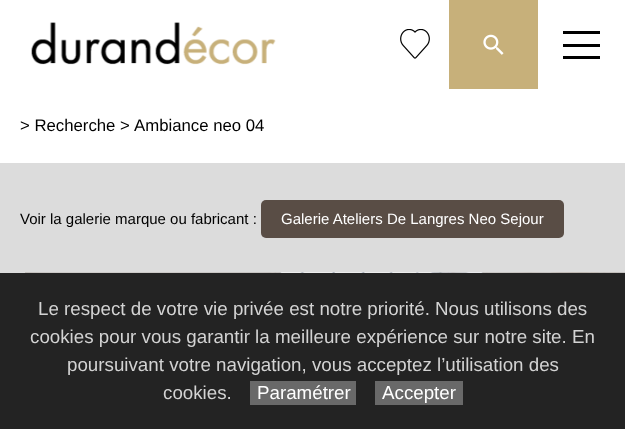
<svg xmlns="http://www.w3.org/2000/svg" xmlns:xlink="http://www.w3.org/1999/xlink" width="625" height="429" viewBox="0 0 625 429">
<style>
.cls-1{font:16.75px Liberation Sans;fill:#000000}
.cls-2{font:15px Liberation Sans;fill:#000000}
.cls-3{font:15px Liberation Sans;fill:#ffffff}
.cls-4{font:18.75px Liberation Sans;fill:#d3d3d3}
.cls-5{font:18.75px Liberation Sans;fill:#ffffff}
</style>
<rect width="100%" height="100%" fill="#ffffff"/>
<image xlink:href="image0.png" x="31" y="22" width="245" height="43"/>
<image xlink:href="image1.png" x="400" y="29" width="30" height="30"/>
<rect fill="#c7b07a" x="449" y="0" width="89" height="89"/>
<image xlink:href="image2.png" x="483" y="34" width="21" height="21"/>
<rect fill="#000000" x="563" y="31" width="37" height="3"/>
<rect fill="#000000" x="563" y="44" width="37" height="3"/>
<rect fill="#000000" x="563" y="56" width="37" height="3"/>
<rect fill="#dcdcdc" x="0" y="163" width="625" height="110"/>
<rect fill="#594d45" x="261" y="200" width="303" height="38" rx="5"/>
<image xlink:href="image3.png" x="25" y="272" width="600" height="1"/>
<rect fill="#232323" x="0" y="273" width="625" height="156"/>
<rect fill="#696969" x="250" y="381" width="106" height="24"/>
<rect fill="#696969" x="375" y="381" width="88" height="24"/>
<text class="cls-1" x="20" y="131">&gt; Recherche &gt;</text>
<text class="cls-1" x="134" y="131">Ambiance neo 04</text>
<text class="cls-2" x="20" y="224">Voir la galerie marque ou fabricant :</text>
<text class="cls-3" x="281" y="224">Galerie Ateliers De Langres Neo Sejour</text>
<text class="cls-4" x="38" y="315">Le respect de votre vie privée est notre priorité. Nous utilisons des</text>
<text class="cls-4" x="30" y="343">cookies pour vous garantir la meilleure expérience sur notre site. En</text>
<text class="cls-4" x="67" y="371">poursuivant votre navigation, vous acceptez l’utilisation des</text>
<text class="cls-4" x="163" y="399">cookies.</text>
<text class="cls-5" x="257" y="399">Paramétrer</text>
<text class="cls-5" x="382" y="399">Accepter</text>
</svg>
